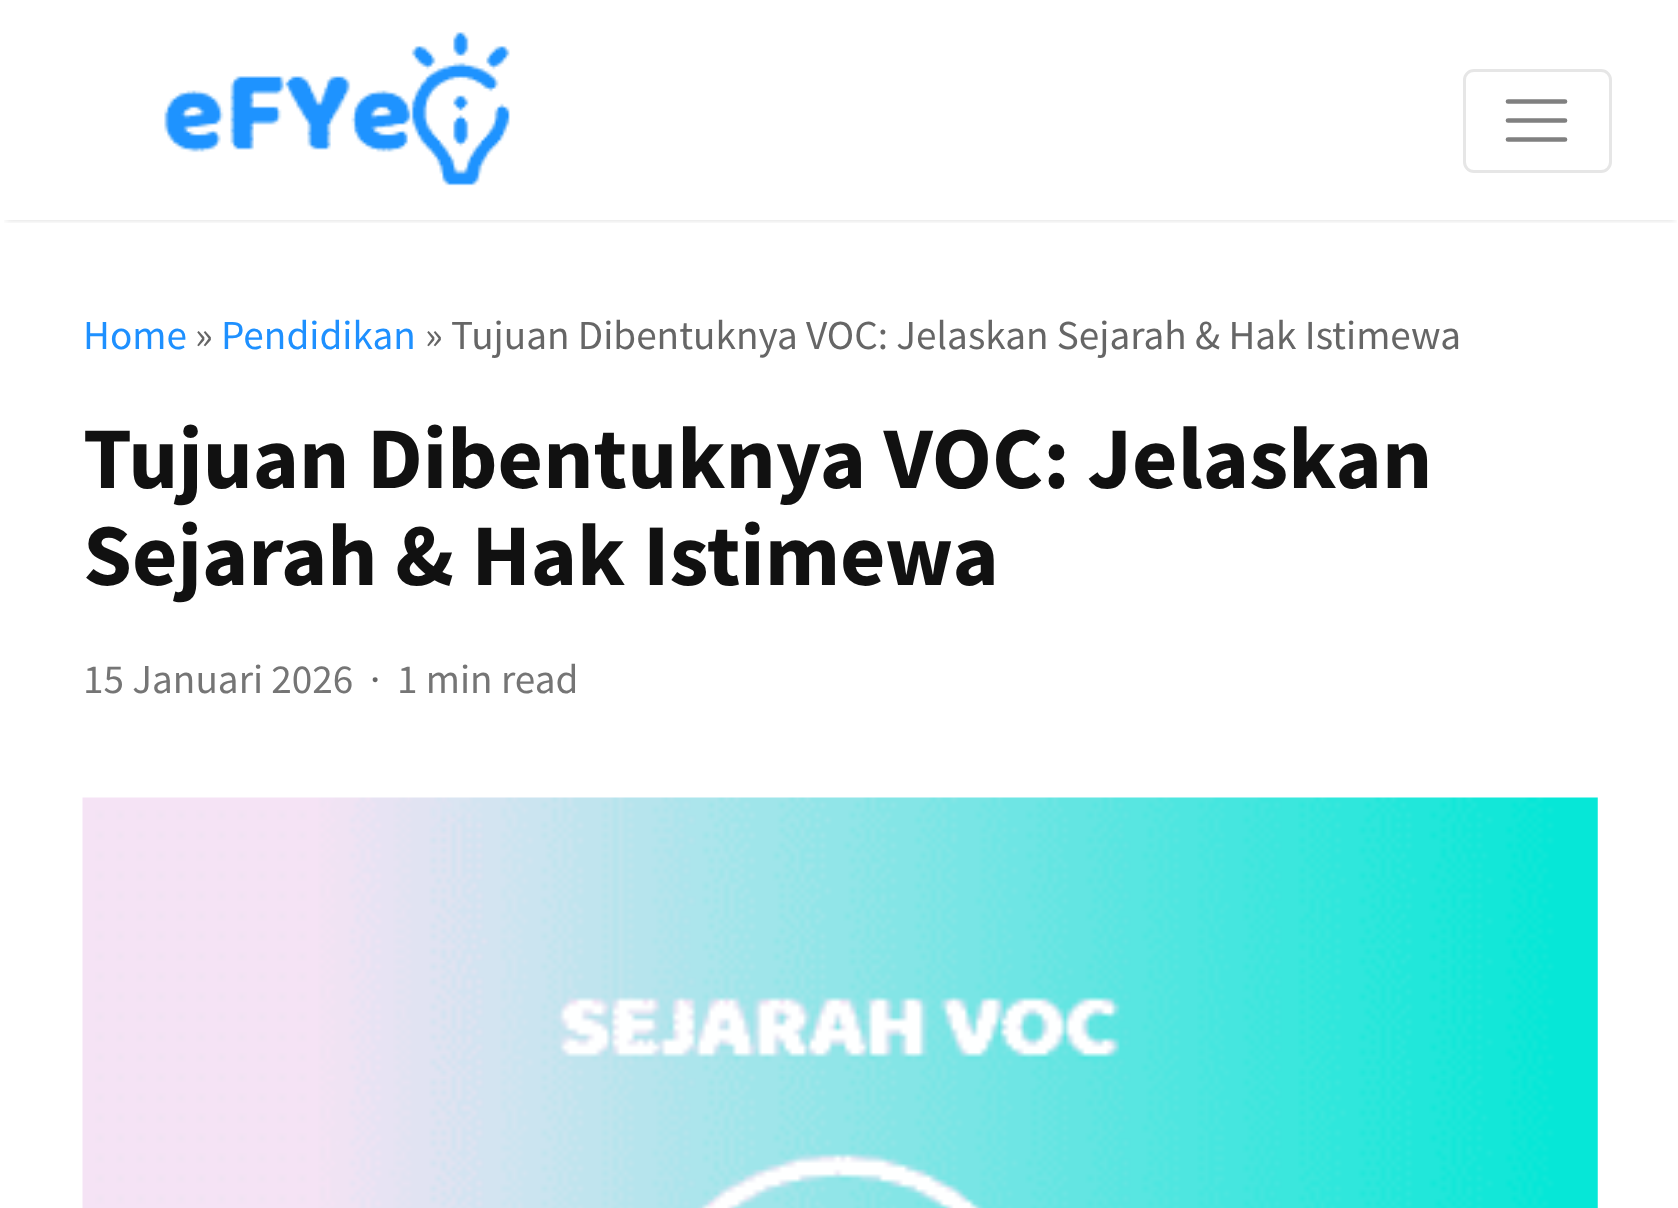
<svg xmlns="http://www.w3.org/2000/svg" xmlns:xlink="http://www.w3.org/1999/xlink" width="1678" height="1208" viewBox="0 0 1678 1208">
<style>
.cls-1{font:41.25px Source Sans Pro;fill:#1e90ff}
.cls-2{font:41.25px Source Sans Pro;fill:#666666}
.cls-3{font:bold 88px Source Sans Pro;fill:#111111}
.cls-4{font:41.25px Source Sans Pro;fill:#757575}
</style>
<defs>
<clipPath id="clip1"><rect x="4" y="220" width="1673" height="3"/></clipPath>
</defs>
<rect width="100%" height="100%" fill="#ffffff"/>
<g clip-path="url(#clip1)">
<rect fill="#000000" fill-opacity="0.15" filter="blur(3px)" x="6" y="11" width="1669" height="209"/>
</g>
<image xlink:href="image0.png" x="164" y="32" width="346" height="154"/>
<rect fill="none" stroke="#e6e6e6" stroke-width="3" x="1464.5" y="70.5" width="146" height="101" rx="9.5"/>
<path fill="none" stroke="#808080" stroke-width="4.7" stroke-linecap="round" d="M1508 101.5H1565M1508 120.5H1565M1508 139.5H1565"/>
<image xlink:href="image1.png" x="82" y="797" width="1516" height="411"/>
<text class="cls-1" x="83" y="349">Home</text>
<text class="cls-2" x="195" y="349">»</text>
<text class="cls-1" x="221" y="349">Pendidikan</text>
<text class="cls-2" x="425" y="349">» Tujuan Dibentuknya VOC: Jelaskan Sejarah &amp; Hak Istimewa</text>
<text class="cls-3"><tspan x="83" y="488">Tujuan Dibentuknya VOC: Jelaskan</tspan><tspan x="83" y="585">Sejarah &amp; Hak Istimewa</tspan></text>
<text class="cls-4" x="83" y="693">15 Januari 2026</text>
<text class="cls-2" x="370" y="693">·</text>
<text class="cls-4" x="397" y="693">1 min read</text>
</svg>
